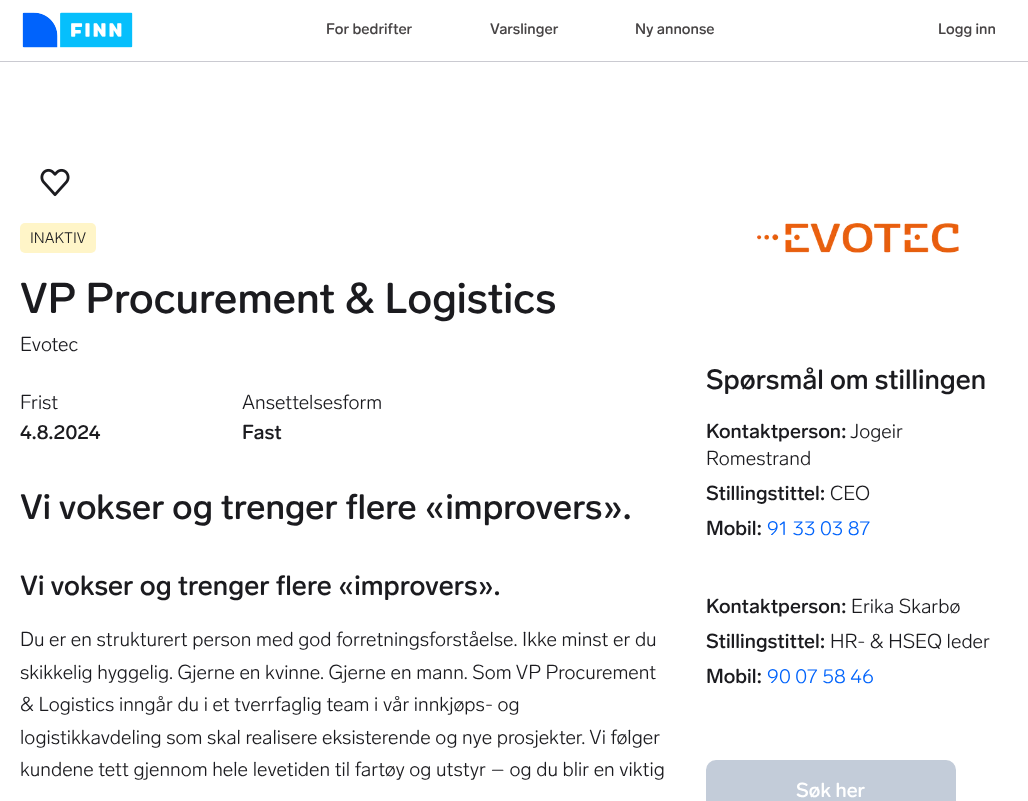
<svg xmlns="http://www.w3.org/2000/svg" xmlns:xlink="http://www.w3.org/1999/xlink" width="1028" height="801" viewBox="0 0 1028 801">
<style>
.cls-1{font:500 15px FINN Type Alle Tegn;fill:#474445}
.cls-2{font:300 15px FINN Type Alle Tegn;fill:#1b1b1f}
.cls-3{font:500 42.5px FINN Type Alle Tegn;fill:#1b1b1f}
.cls-4{font:300 20px FINN Type Alle Tegn;fill:#1b1b1f}
.cls-5{font:500 20px FINN Type Alle Tegn;fill:#1b1b1f}
.cls-6{font:500 35px FINN Type Alle Tegn;fill:#1b1b1f}
.cls-7{font:500 27.5px FINN Type Alle Tegn;fill:#1b1b1f}
.cls-8{font:300 20px FINN Type Alle Tegn;fill:#0063fb}
.cls-9{font:500 20px FINN Type Alle Tegn;fill:#ffffff}
</style>
<rect width="100%" height="100%" fill="#ffffff"/>
<rect fill="#cacad1" x="0" y="61" width="1028" height="1"/>
<image xlink:href="image0.png" x="22" y="12" width="111" height="36"/>
<image xlink:href="image1.png" x="40" y="168" width="30" height="29"/>
<rect fill="#fff5c8" x="20" y="223" width="76" height="30" rx="5"/>
<image xlink:href="image2.png" x="757" y="223" width="202" height="30"/>
<rect fill="#c3ccd9" stroke="#c3ccd9" stroke-width="3" x="707.5" y="761.5" width="247" height="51" rx="8.5"/>
<text class="cls-1" x="326" y="34">For bedrifter</text>
<text class="cls-1" x="490" y="34">Varslinger</text>
<text class="cls-1" x="635" y="34">Ny annonse</text>
<text class="cls-1" x="938" y="34">Logg inn</text>
<text class="cls-2" x="30" y="243">INAKTIV</text>
<text class="cls-3" x="20" y="313">VP Procurement &amp; Logistics</text>
<text class="cls-4" x="20" y="351">Evotec</text>
<text class="cls-4" x="20" y="409">Frist</text>
<text class="cls-5" x="20" y="439">4.8.2024</text>
<text class="cls-4" x="242" y="409">Ansettelsesform</text>
<text class="cls-5" x="242" y="439">Fast</text>
<text class="cls-6" x="20" y="519">Vi vokser og trenger flere «improvers».</text>
<text class="cls-7" x="20" y="595">Vi vokser og trenger flere «improvers».</text>
<text class="cls-4"><tspan x="20" y="646">Du er en strukturert person med god forretningsforståelse. Ikke minst er du</tspan><tspan x="20" y="679">skikkelig hyggelig. Gjerne en kvinne. Gjerne en mann. Som VP Procurement</tspan><tspan x="20" y="711">&amp; Logistics inngår du i et tverrfaglig team i vår innkjøps- og</tspan><tspan x="20" y="744">logistikkavdeling som skal realisere eksisterende og nye prosjekter. Vi følger</tspan><tspan x="20" y="776">kundene tett gjennom hele levetiden til fartøy og utstyr – og du blir en viktig</tspan></text>
<text class="cls-7" x="706" y="389">Spørsmål om stillingen</text>
<text class="cls-5" x="706" y="438">Kontaktperson:</text>
<text class="cls-4" x="850" y="438">Jogeir</text>
<text class="cls-4" x="706" y="465">Romestrand</text>
<text class="cls-5" x="706" y="500">Stillingstittel:</text>
<text class="cls-4" x="830" y="500">CEO</text>
<text class="cls-5" x="706" y="535">Mobil:</text>
<text class="cls-8" x="767" y="535">91 33 03 87</text>
<text class="cls-5" x="706" y="613">Kontaktperson:</text>
<text class="cls-4" x="851" y="613">Erika Skarbø</text>
<text class="cls-5" x="706" y="648">Stillingstittel:</text>
<text class="cls-4" x="830" y="648">HR- &amp; HSEQ leder</text>
<text class="cls-5" x="706" y="683">Mobil:</text>
<text class="cls-8" x="767" y="683">90 07 58 46</text>
<text class="cls-9" x="796" y="797">Søk her</text>
</svg>
